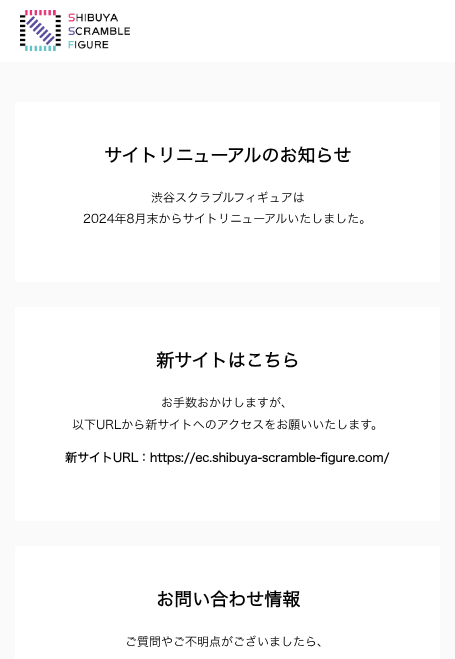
<svg xmlns="http://www.w3.org/2000/svg" xmlns:xlink="http://www.w3.org/1999/xlink" width="455" height="659" viewBox="0 0 455 659">
<style>
.cls-1{font:bold 18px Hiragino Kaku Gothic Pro;fill:#000000}
.cls-2{font:300 12px Hiragino Kaku Gothic Pro;fill:#000000}
.cls-3{font:bold 12px Hiragino Kaku Gothic Pro;fill:#000000}
</style>
<rect width="100%" height="100%" fill="#fafafa"/>
<rect fill="#ffffff" x="0" y="0" width="455" height="62"/>
<image xlink:href="image0.png" x="20" y="10" width="110" height="41"/>
<rect fill="#ffffff" x="15" y="102" width="425" height="180"/>
<rect fill="#ffffff" x="15" y="307" width="425" height="214"/>
<rect fill="#ffffff" x="15" y="546" width="425" height="113"/>
<text class="cls-1" x="104" y="162">サイトリニューアルのお知らせ</text>
<text class="cls-2" x="151" y="202">渋谷スクラブルフィギュアは</text>
<text class="cls-2" x="83" y="223">2024年8月末からサイトリニューアルいたしました。</text>
<text class="cls-1" x="156" y="367">新サイトはこちら</text>
<text class="cls-2" x="161" y="407">お手数おかけしますが、</text>
<text class="cls-2" x="72" y="429">以下URLから新サイトへのアクセスをお願いいたします。</text>
<text class="cls-3" x="65" y="462">新サイトURL：https://ec.shibuya-scramble-figure.com/</text>
<text class="cls-1" x="156" y="606">お問い合わせ情報</text>
<text class="cls-2" x="125" y="646">ご質問やご不明点がございましたら、</text>
</svg>
